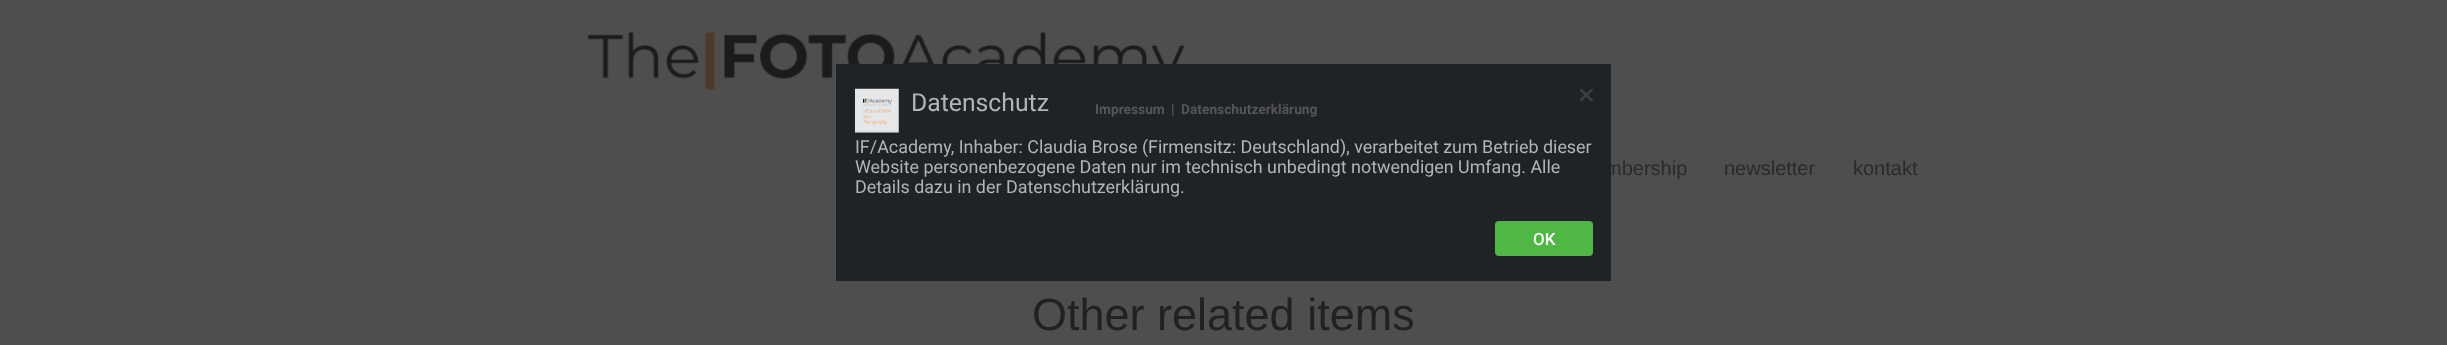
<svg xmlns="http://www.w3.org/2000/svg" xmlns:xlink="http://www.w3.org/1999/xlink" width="2447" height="345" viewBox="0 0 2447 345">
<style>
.cls-1{font:20px Liberation Sans;fill:#2a2a2a}
.cls-2{font:500 17px Roboto;fill:#ffffff}
.cls-3{font:17.9px Roboto;fill:#b2b4b6}
.cls-4{font:bold 13.75px Roboto;fill:#555555}
.cls-5{font:24.75px Roboto;fill:#b2b4b6}
.cls-6{font:45px Liberation Sans;fill:#212121}
</style>
<defs>
<clipPath id="clip1"><rect x="1580" y="89" width="13" height="12"/></clipPath>
</defs>
<rect width="100%" height="100%" fill="#4e4e4e"/>
<image xlink:href="image1.png" x="587" y="30" width="599" height="61"/>
<text class="cls-1" x="1605" y="175">mbership</text>
<rect fill="#202326" x="836" y="64" width="775" height="217"/>
<rect fill="#4fb845" x="1495" y="221" width="98" height="35" rx="4"/>
<text class="cls-2" x="1533" y="245">OK</text>
<text class="cls-3" x="855" y="193">Details dazu in der Datenschutzerklärung.</text>
<text class="cls-3" x="855" y="173">Website personenbezogene Daten nur im technisch unbedingt notwendigen Umfang. Alle</text>
<text class="cls-3" x="855" y="153">IF/Academy, Inhaber: Claudia Brose (Firmensitz: Deutschland), verarbeitet zum Betrieb dieser</text>
<g clip-path="url(#clip1)">
<path fill="none" stroke="#3d4043" stroke-width="2.5" d="M1580 89L1592.5 101M1580 101L1592.5 89"/>
</g>
<text class="cls-4" x="1181" y="114">Datenschutzerklärung</text>
<text class="cls-4" x="1171" y="114">|</text>
<text class="cls-4" x="1095" y="114">Impressum</text>
<image xlink:href="image0.png" x="855" y="88" width="44" height="45"/>
<text class="cls-5" x="911" y="111">Datenschutz</text>
<text class="cls-1" x="1724" y="175">newsletter</text>
<text class="cls-1" x="1853" y="175">kontakt</text>
<text class="cls-6" x="1032" y="330">Other related items</text>
</svg>
